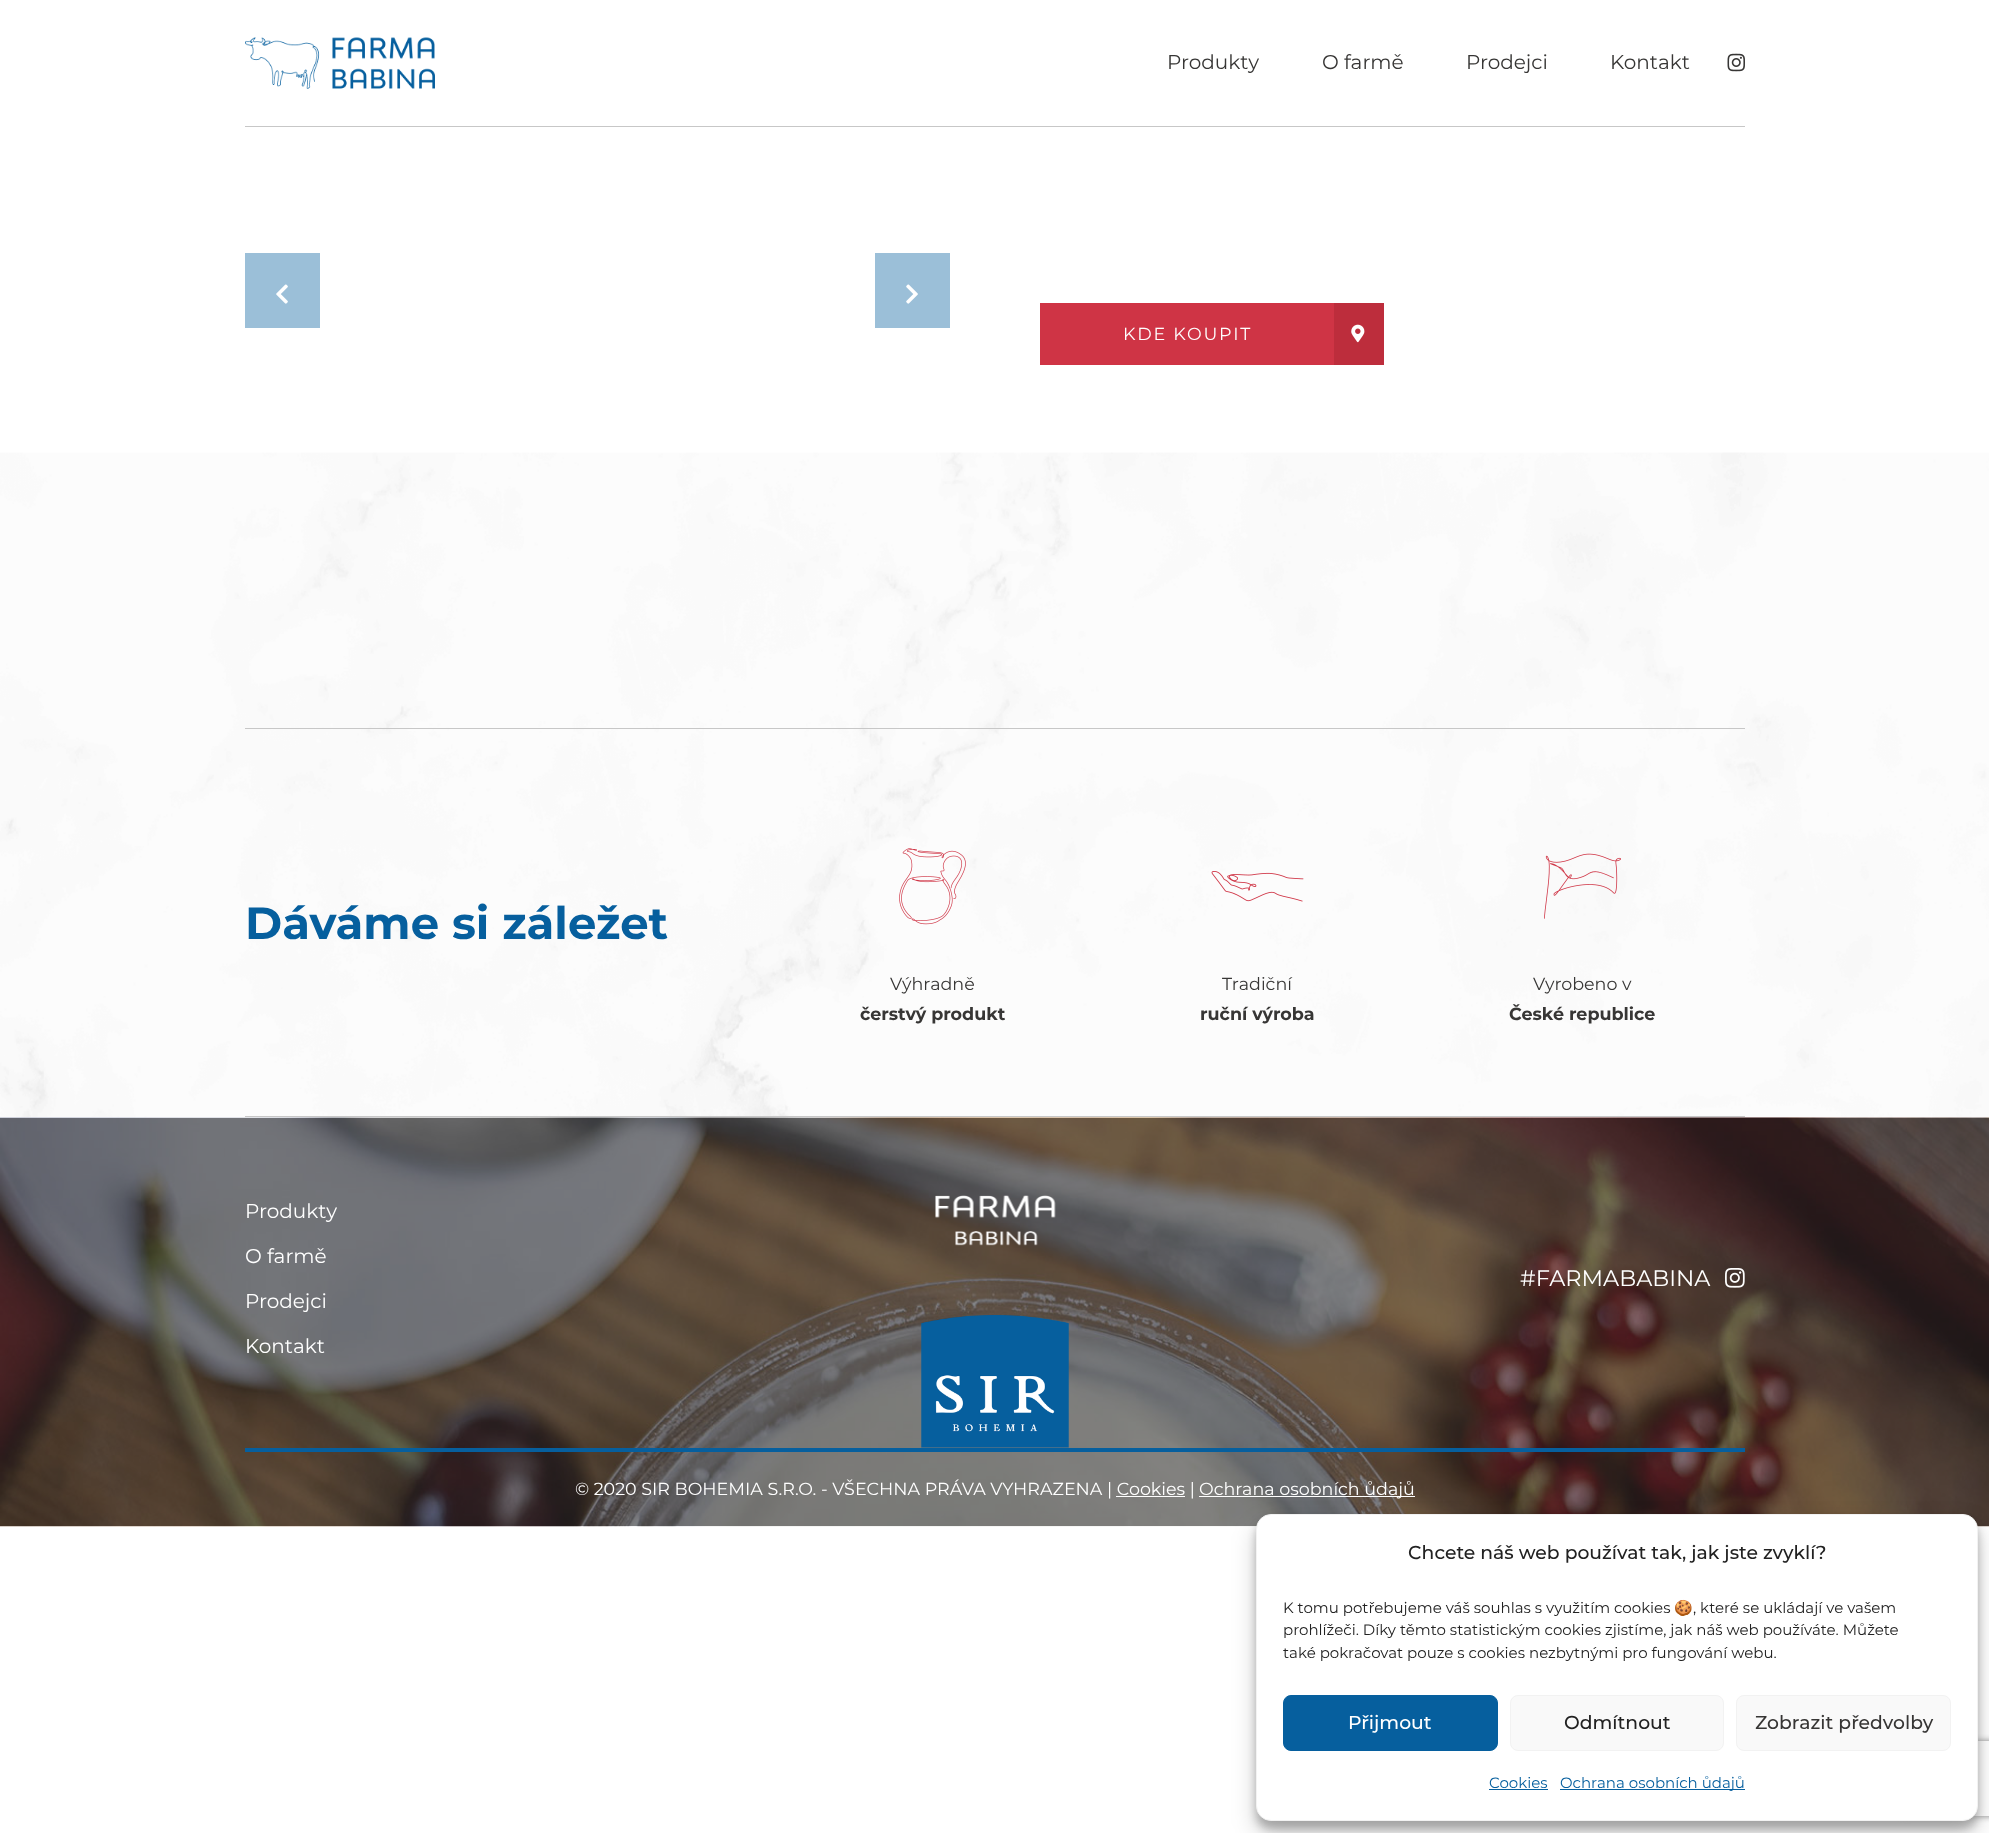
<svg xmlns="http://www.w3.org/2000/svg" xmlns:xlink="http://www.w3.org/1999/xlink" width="1989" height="1833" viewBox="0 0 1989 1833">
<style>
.cls-1{font:20px Montserrat;fill:#373635}
.cls-2{font:17.5px Montserrat;letter-spacing:1.75px;fill:#ffffff}
.cls-3{font:bold 45px Montserrat;fill:#065f9e}
.cls-4{font:17.5px Montserrat;fill:#373635}
.cls-5{font:bold 17.5px Montserrat;fill:#373635}
.cls-6{font:20px Montserrat;fill:#ffffff}
.cls-7{font:22.5px Montserrat;fill:#ffffff}
.cls-8{font:17.5px Montserrat;fill:#ffffff}
.cls-9{font:500 18.75px Montserrat;fill:#222222}
.cls-10{font:15px Montserrat;fill:#222222}
.cls-11{font:15px Noto Color Emoji;fill:#222222}
.cls-12{font:500 18.75px Montserrat;fill:#ffffff}
.cls-13{font:500 18.75px Montserrat;fill:#373635}
.cls-14{font:15px Montserrat;fill:#065f9e}
</style>
<defs>
<clipPath id="clip1"><path d="M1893 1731H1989V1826H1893ZM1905.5 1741H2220.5C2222 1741 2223 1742 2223 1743.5V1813.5C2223 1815 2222 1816 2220.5 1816H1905.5C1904 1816 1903 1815 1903 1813.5V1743.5C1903 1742 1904 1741 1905.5 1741Z" clip-rule="evenodd"/></clipPath>
</defs>
<rect width="100%" height="100%" fill="#ffffff"/>
<rect fill="#c7c7c7" x="245" y="126" width="1500" height="1"/>
<image xlink:href="image0.png" x="245" y="37" width="190" height="52"/>
<image xlink:href="image1.png" x="1727" y="53" width="18" height="19"/>
<rect fill="#9bbfd8" x="245" y="253" width="75" height="75"/>
<image xlink:href="image2.png" x="276" y="284" width="12" height="20"/>
<rect fill="#9bbfd8" x="875" y="253" width="75" height="75"/>
<image xlink:href="image3.png" x="906" y="284" width="12" height="20"/>
<rect fill="#cf3445" x="1040" y="303" width="294" height="62"/>
<rect fill="#bd2d3c" x="1334" y="303" width="50" height="62"/>
<image xlink:href="image4.png" x="1351" y="324" width="14" height="19"/>
<image xlink:href="image5.png" x="0" y="452" width="1989" height="666"/>
<rect fill="#c7c7c7" x="245" y="728" width="1500" height="1"/>
<rect fill="#c7c7c7" x="245" y="1116" width="1500" height="1"/>
<image xlink:href="image6.png" x="899" y="848" width="67" height="77"/>
<image xlink:href="image7.png" x="1211" y="871" width="93" height="31"/>
<image xlink:href="image8.png" x="1544" y="853" width="77" height="66"/>
<image xlink:href="image9.png" x="0" y="1117" width="1989" height="410"/>
<rect fill="#065f9e" x="245" y="1448" width="1500" height="4"/>
<image xlink:href="image10.png" x="935" y="1195" width="121" height="51"/>
<image xlink:href="image11.png" x="1725" y="1268" width="20" height="20"/>
<image xlink:href="image12.png" x="921" y="1315" width="148" height="133"/>
<rect fill="#ffffff" x="1199" y="1496" width="216" height="1"/>
<rect fill="#ffffff" x="1116" y="1496" width="69" height="1"/>
<rect fill="#000000" fill-opacity="0.23" filter="blur(4px)" x="1256" y="1521" width="722" height="308" rx="15"/>
<rect fill="#000000" fill-opacity="0.19" filter="blur(12.5px)" x="1256" y="1526" width="722" height="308" rx="15"/>
<g clip-path="url(#clip1)">
<rect fill="#808080" filter="blur(3px)" x="1903" y="1741" width="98" height="75" rx="2.5"/>
</g>
<rect fill="#ffffff" stroke="#f2f2f2" x="1256.5" y="1514.5" width="721" height="306" rx="14.5"/>
<rect fill="#065f9e" stroke="#065f9e" x="1283.5" y="1695.5" width="214" height="55" rx="7.5"/>
<rect fill="#f9f9f9" stroke="#f2f2f2" x="1510.5" y="1695.5" width="213" height="55" rx="7.5"/>
<rect fill="#f9f9f9" stroke="#f2f2f2" x="1736.5" y="1695.5" width="214" height="55" rx="7.5"/>
<rect fill="#065f9e" x="1489" y="1789" width="59" height="1"/>
<rect fill="#065f9e" x="1560" y="1789" width="185" height="1"/>
<text class="cls-1" x="1167" y="69">Produkty</text>
<text class="cls-1" x="1322" y="69">O farmě</text>
<text class="cls-1" x="1466" y="69">Prodejci</text>
<text class="cls-1" x="1610" y="69">Kontakt</text>
<text class="cls-2" x="1123" y="340">KDE KOUPIT</text>
<text class="cls-3" x="245" y="939">Dáváme si záležet</text>
<text class="cls-4" x="890" y="990">Výhradně</text>
<text class="cls-5" x="860" y="1020">čerstvý produkt</text>
<text class="cls-4" x="1222" y="990">Tradiční</text>
<text class="cls-5" x="1200" y="1020">ruční výroba</text>
<text class="cls-4" x="1533" y="990">Vyrobeno v</text>
<text class="cls-5" x="1509" y="1020">České republice</text>
<text class="cls-6" x="245" y="1218">Produkty</text>
<text class="cls-6" x="245" y="1263">O farmě</text>
<text class="cls-6" x="245" y="1308">Prodejci</text>
<text class="cls-6" x="245" y="1353">Kontakt</text>
<text class="cls-7" x="1520" y="1286">#FARMABABINA</text>
<text class="cls-8" x="575" y="1495">© 2020 SIR BOHEMIA S.R.O. - VŠECHNA PRÁVA VYHRAZENA | Cookies |</text>
<text class="cls-8" x="1199" y="1495">Ochrana osobních ůdajů</text>
<text class="cls-9" x="1408" y="1559">Chcete náš web používat tak, jak jste zvyklí?</text>
<text class="cls-10" x="1283" y="1613">K tomu potřebujeme váš souhlas s využitím cookies</text>
<text class="cls-11" x="1674" y="1613">🍪</text>
<text class="cls-10" x="1693" y="1613">, které se ukládají ve vašem</text>
<text class="cls-10"><tspan x="1283" y="1635">prohlížeči. Díky těmto statistickým cookies zjistíme, jak náš web používáte. Můžete</tspan><tspan x="1283" y="1658">také pokračovat pouze s cookies nezbytnými pro fungování webu.</tspan></text>
<text class="cls-12" x="1348" y="1729">Přijmout</text>
<text class="cls-9" x="1564" y="1729">Odmítnout</text>
<text class="cls-13" x="1755" y="1729">Zobrazit předvolby</text>
<text class="cls-14" x="1489" y="1788">Cookies</text>
<text class="cls-14" x="1560" y="1788">Ochrana osobních ůdajů</text>
</svg>
